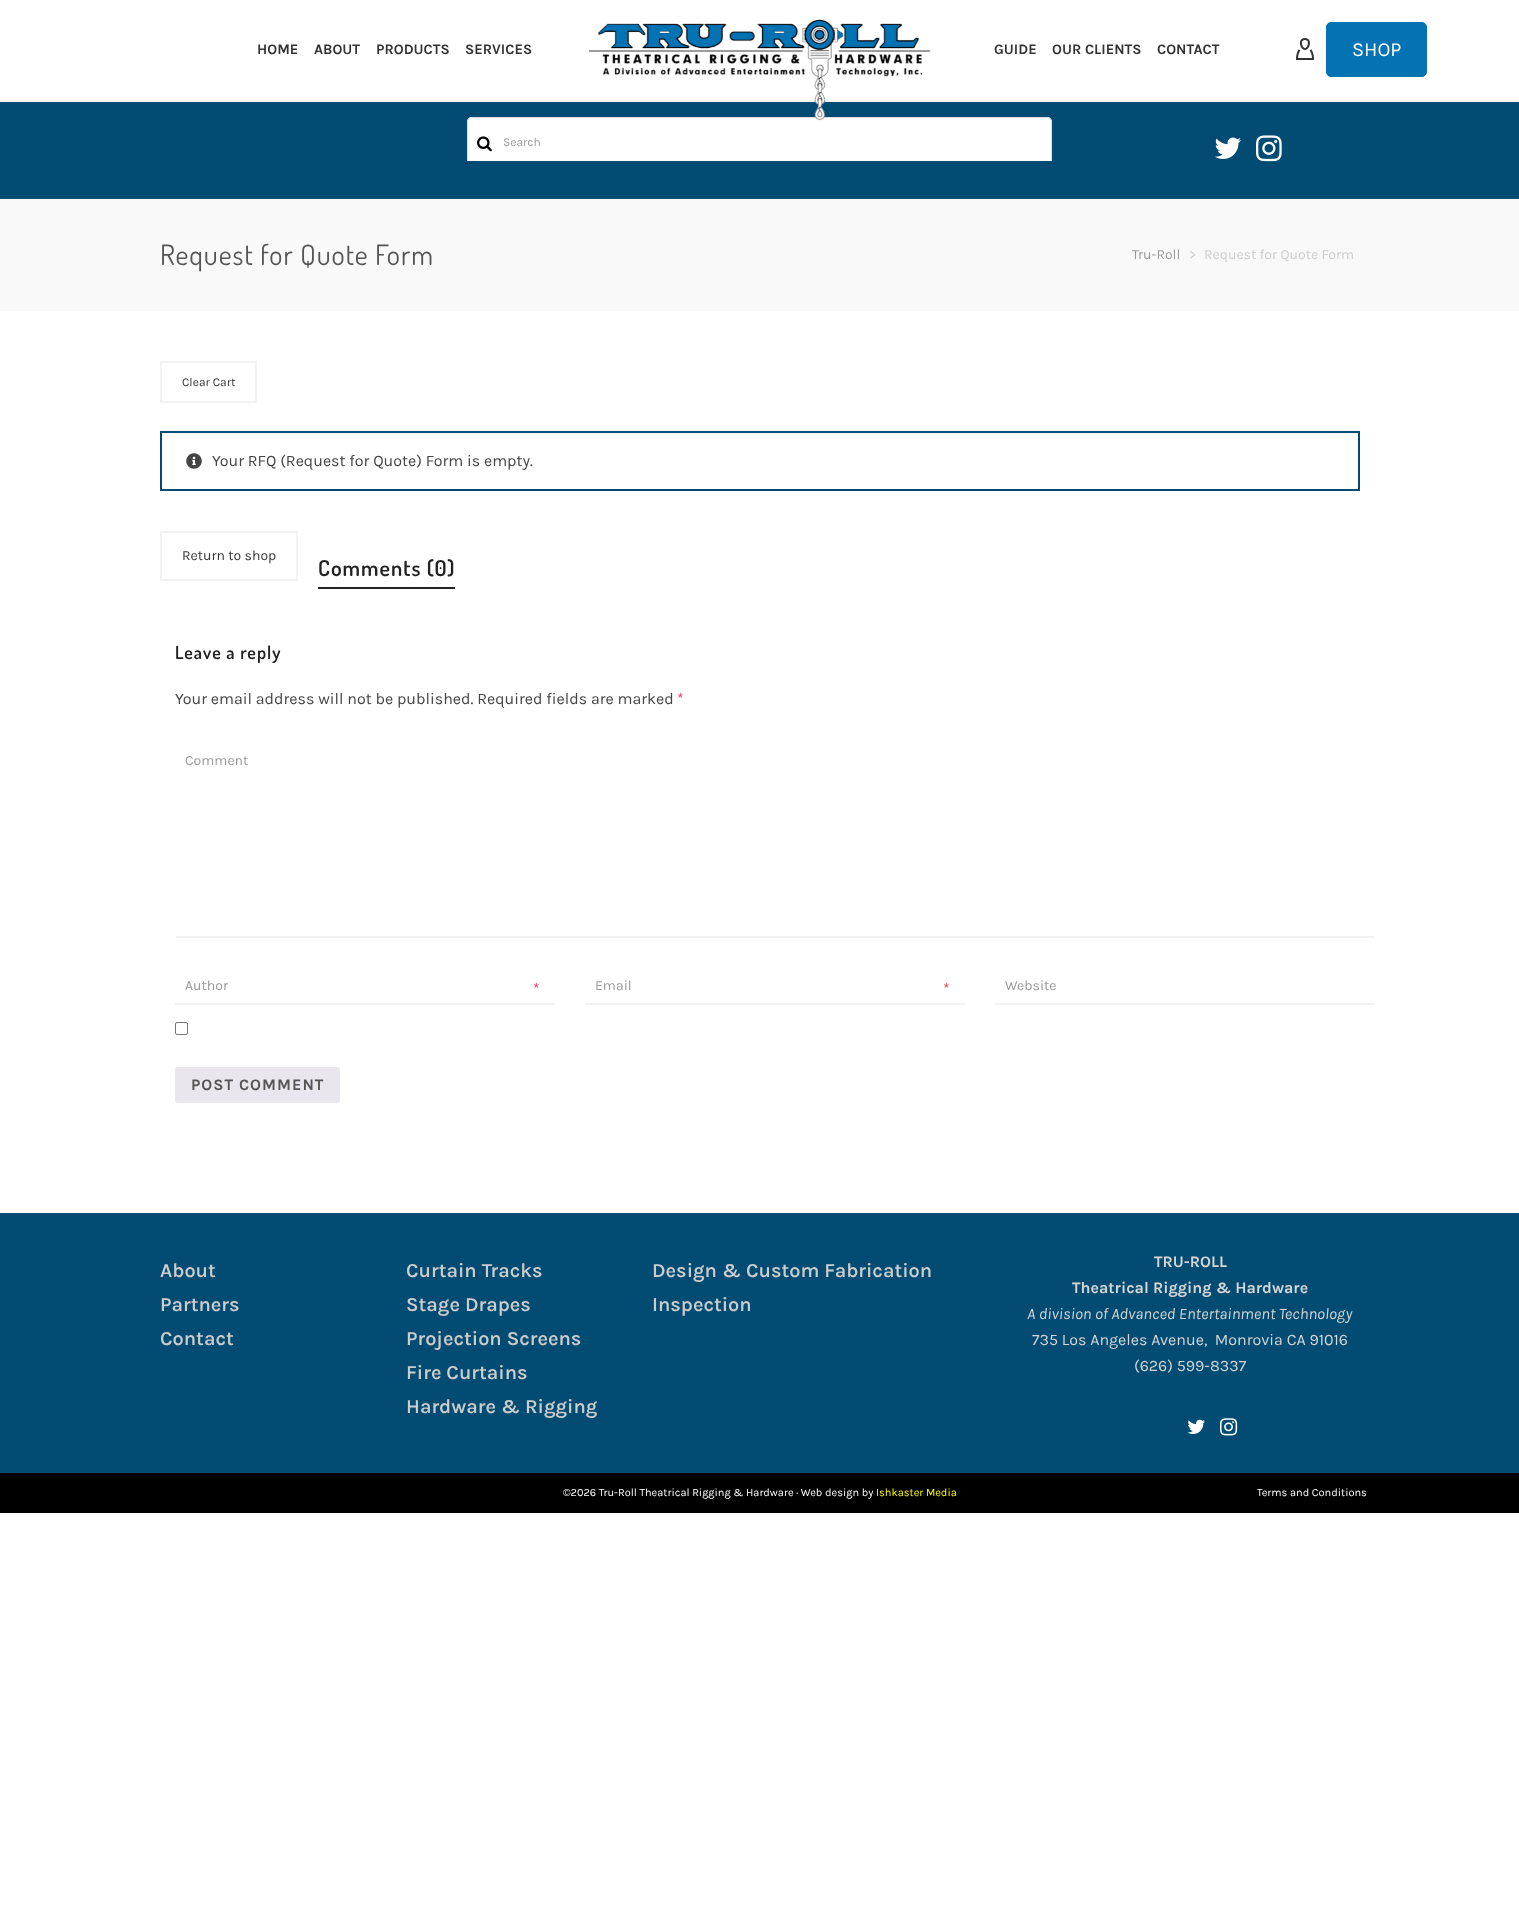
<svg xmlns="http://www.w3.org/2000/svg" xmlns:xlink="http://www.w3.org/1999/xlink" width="1519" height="1921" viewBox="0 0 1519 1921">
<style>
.cls-1{font:20px Karla;fill:#ffffff}
.cls-2{font:bold 14.5px Karla;fill:#333333}
.cls-3{font:12px Karla;fill:#999999}
.cls-4{font:28px Dosis;letter-spacing:1px;fill:#555555}
.cls-5{font:14px Karla;fill:#999999}
.cls-6{font:14px Karla;fill:#cccccc}
.cls-7{font:12px Karla;fill:#333333}
.cls-8{font:16px Karla;fill:#444444}
.cls-9{font:14px Karla;fill:#333333}
.cls-10{font:600 22px Dosis;letter-spacing:1px;fill:#222222}
.cls-11{font:600 18px Dosis;letter-spacing:1px;fill:#222222}
.cls-12{font:16px Karla;fill:#ee3c59}
.cls-13{font:bold 16px Karla;letter-spacing:1px;fill:#555555}
.cls-14{font:600 20px Karla;fill:#cccccc}
.cls-15{font:bold 16px Karla;fill:#d5d5d5}
.cls-16{font:italic 16px Karla;fill:#d5d5d5}
.cls-17{font:16px Karla;fill:#d5d5d5}
.cls-18{font:11px Karla;fill:#ffffff}
.cls-19{font:11px Karla;fill:#ffff00}
</style>
<defs>
<clipPath id="clip1"><rect x="467" y="117" width="585" height="44"/></clipPath>
</defs>
<rect width="100%" height="100%" fill="#ffffff"/>
<rect fill="#f5f5f5" x="0" y="100" width="1519" height="2"/>
<rect fill="#024c73" x="0" y="102" width="1519" height="97"/>
<path fill="#ffffff" d="M472 117H1047C1050 117 1052 119 1052 122V161H467V122C467 119 469 117 472 117Z"/>
<g clip-path="url(#clip1)">
<rect fill="none" stroke="#dddddd" x="467.5" y="117.5" width="584" height="49" rx="4.5"/>
</g>
<image xlink:href="image0.png" x="588" y="19" width="343" height="102"/>
<image xlink:href="image1.png" x="1296" y="38" width="18" height="22"/>
<rect fill="#0373b3" stroke="#0373b3" x="1326.5" y="22.5" width="100" height="54" rx="4.5"/>
<image xlink:href="image2.png" x="477" y="136" width="15" height="16"/>
<image xlink:href="image3.png" x="1215" y="137" width="26" height="22"/>
<image xlink:href="image4.png" x="1256" y="135" width="26" height="27"/>
<rect fill="#f9f9f9" x="0" y="199" width="1519" height="112"/>
<rect fill="none" stroke="#f2f2f2" stroke-width="2" x="161" y="362" width="95" height="40"/>
<rect fill="none" stroke="#024c73" stroke-width="2" x="161" y="432" width="1198" height="58"/>
<image xlink:href="image5.png" x="186" y="453" width="16" height="16"/>
<rect fill="none" stroke="#f2f2f2" stroke-width="2" x="161" y="532" width="136" height="48"/>
<rect fill="#222222" x="318" y="587" width="137" height="2"/>
<rect fill="#f2f2f2" x="176" y="936" width="1198" height="2"/>
<rect fill="#f2f2f2" x="175" y="1003" width="380" height="2"/>
<rect fill="#f2f2f2" x="585" y="1003" width="380" height="2"/>
<rect fill="#f2f2f2" x="995" y="1003" width="380" height="2"/>
<rect fill="none" stroke="#767676" x="175.5" y="1022.5" width="12" height="12" rx="1.5"/>
<rect fill="#e9e6ed" x="175" y="1067" width="165" height="36" rx="3"/>
<rect fill="#024c73" x="0" y="1213" width="1519" height="260"/>
<image xlink:href="image6.png" x="1187" y="1419" width="18" height="15"/>
<image xlink:href="image7.png" x="1220" y="1418" width="18" height="18"/>
<rect fill="#000000" x="0" y="1473" width="1519" height="40"/>
<text class="cls-1" x="1352" y="56">SHOP</text>
<text class="cls-2" x="257" y="54">HOME</text>
<text class="cls-2" x="314" y="54">ABOUT</text>
<text class="cls-2" x="376" y="54">PRODUCTS</text>
<text class="cls-2" x="465" y="54">SERVICES</text>
<text class="cls-2" x="994" y="54">GUIDE</text>
<text class="cls-2" x="1052" y="54">OUR CLIENTS</text>
<text class="cls-2" x="1157" y="54">CONTACT</text>
<text class="cls-3" x="503" y="146">Search</text>
<text class="cls-4" x="160" y="265">Request for Quote Form</text>
<text class="cls-5" x="1132" y="259">Tru-Roll</text>
<text class="cls-6" x="1189" y="259">&gt;</text>
<text class="cls-6" x="1204" y="259">Request for Quote Form</text>
<text class="cls-7" x="182" y="386">Clear Cart</text>
<text class="cls-8" x="212" y="466">Your RFQ (Request for Quote) Form is empty.</text>
<text class="cls-9" x="182" y="560">Return to shop</text>
<text class="cls-10" x="318" y="576">Comments (0)</text>
<text class="cls-11" x="175" y="659">Leave a reply</text>
<text class="cls-8" x="175" y="704">Your email address will not be published. Required fields are marked</text>
<text class="cls-12" x="677" y="704">*</text>
<text class="cls-5" x="185" y="765">Comment</text>
<text class="cls-5" x="185" y="990">Author</text>
<text class="cls-12" x="533" y="994">*</text>
<text class="cls-5" x="595" y="990">Email</text>
<text class="cls-12" x="943" y="994">*</text>
<text class="cls-5" x="1005" y="990">Website</text>
<text class="cls-13" x="191" y="1090">POST COMMENT</text>
<text class="cls-14"><tspan x="160" y="1277">About</tspan><tspan x="160" y="1311">Partners</tspan><tspan x="160" y="1345">Contact</tspan></text>
<text class="cls-14"><tspan x="406" y="1277">Curtain Tracks</tspan><tspan x="406" y="1311">Stage Drapes</tspan><tspan x="406" y="1345">Projection Screens</tspan><tspan x="406" y="1379">Fire Curtains</tspan><tspan x="406" y="1413">Hardware &amp; Rigging</tspan></text>
<text class="cls-14"><tspan x="652" y="1277">Design &amp; Custom Fabrication</tspan><tspan x="652" y="1311">Inspection</tspan></text>
<text class="cls-15" x="1154" y="1267">TRU-ROLL</text>
<text class="cls-15" x="1072" y="1293">Theatrical Rigging &amp; Hardware</text>
<text class="cls-16" x="1027" y="1319">A division of Advanced Entertainment Technology</text>
<text class="cls-17" xml:space="preserve" x="1032" y="1345">735 Los Angeles Avenue,  Monrovia CA 91016</text>
<text class="cls-17" x="1134" y="1371">(626) 599-8337</text>
<text class="cls-18" x="563" y="1496">©2026 Tru-Roll Theatrical Rigging &amp; Hardware · Web design by</text>
<text class="cls-19" x="876" y="1496">Ishkaster Media</text>
<text class="cls-18" x="1257" y="1496">Terms and Conditions</text>
</svg>
